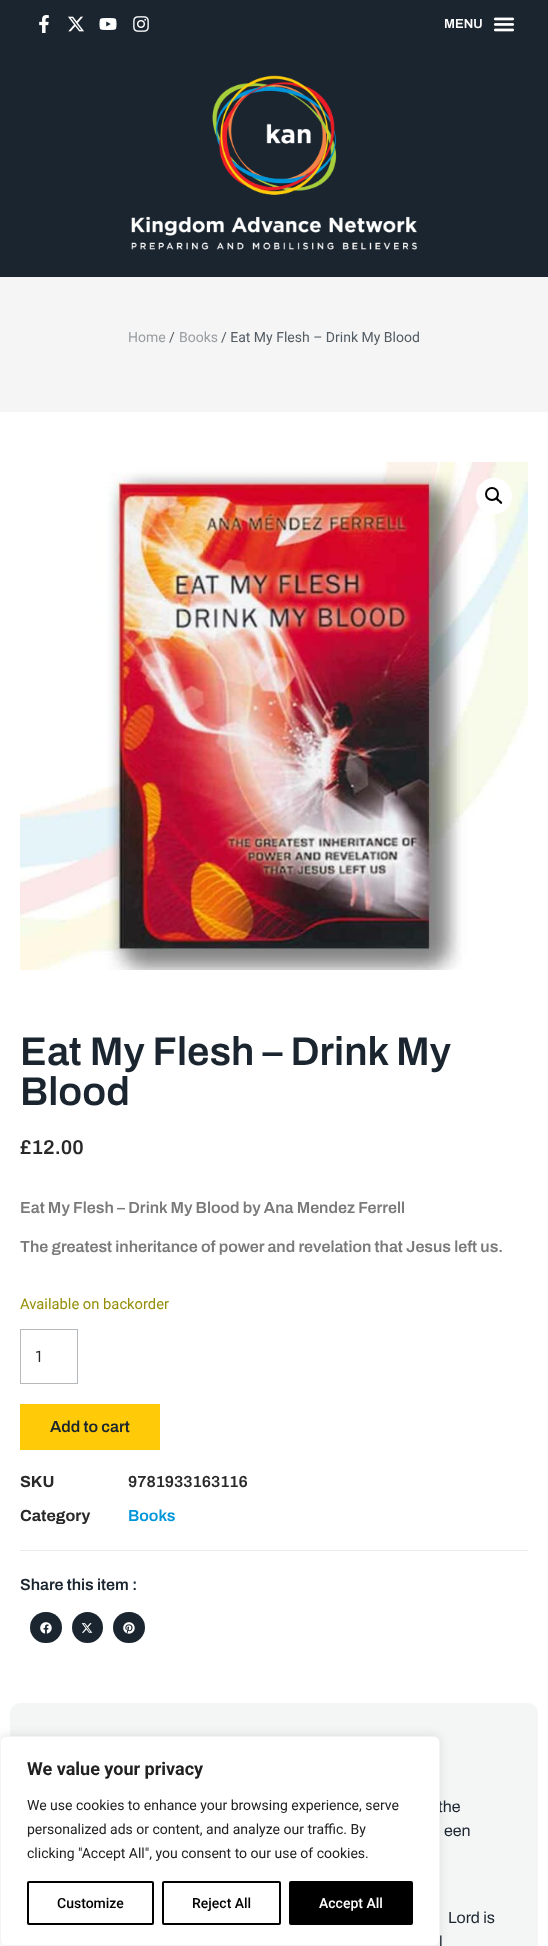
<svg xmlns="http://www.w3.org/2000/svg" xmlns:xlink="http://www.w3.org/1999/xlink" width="548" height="1946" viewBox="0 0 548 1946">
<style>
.cls-1{font:600 13px Archivo;fill:#ffffff}
.cls-2{font:14px Roboto;fill:#999ea2}
.cls-3{font:14px Roboto;fill:#535b63}
.cls-4{font:600 40px Archivo;fill:#1b252f}
.cls-5{font:600 20px Archivo;fill:#292929}
.cls-6{font:600 16px Archivo;fill:#7a7a7a}
.cls-7{font:14.75px Roboto;fill:#958e09}
.cls-8{font:16px Jost;fill:#292929}
.cls-9{font:600 16px Archivo;fill:#1b252f}
.cls-10{font:bold 16px Archivo;fill:#292929}
.cls-11{font:600 16px Archivo;fill:#292929}
.cls-12{font:600 16px Archivo;fill:#0096da}
.cls-13{font:16px Archivo;fill:#1b252f}
.cls-14{font:bold 18px Roboto;fill:#212121}
.cls-15{font:14px Roboto;fill:#212121}
.cls-16{font:500 14px Roboto;fill:#000000}
.cls-17{font:500 14px Roboto;fill:#ffffff}
</style>
<rect width="100%" height="100%" fill="#ffffff"/>
<rect fill="#1b252f" x="0" y="0" width="548" height="277"/>
<image xlink:href="image0.png" x="131" y="75" width="286" height="175"/>
<image xlink:href="image1.png" x="39" y="15" width="10" height="18"/>
<image xlink:href="image2.png" x="68" y="16" width="16" height="16"/>
<image xlink:href="image3.png" x="99" y="18" width="18" height="12"/>
<image xlink:href="image4.png" x="133" y="16" width="16" height="16"/>
<image xlink:href="image5.png" x="493" y="17" width="22" height="15"/>
<rect fill="#f5f5f5" x="0" y="277" width="548" height="135"/>
<image xlink:href="image6.png" x="20" y="462" width="508" height="508"/>
<circle fill="#ffffff" cx="494" cy="496" r="18"/>
<circle fill="none" stroke="#000000" stroke-width="2" cx="492" cy="494" r="6"/>
<path fill="#000000" d="M496 498C497.5 497 499 499.5 499.5 500C500.5 500.5 503 502.5 502 503.5C500.5 505 499 502 498.5 501.5C497.5 501 495 499 496 498Z"/>
<rect fill="none" stroke="#b6b9bc" x="20.5" y="1329.5" width="57" height="54"/>
<rect fill="#ffcb08" x="20" y="1404" width="140" height="46"/>
<rect fill="#eaeaea" x="20" y="1550" width="508" height="1"/>
<rect fill="#1b252f" x="30" y="1612" width="32" height="31" rx="15.5"/>
<image xlink:href="image7.png" x="40" y="1622" width="12" height="12"/>
<circle fill="#1b252f" cx="87.5" cy="1627.5" r="15.5"/>
<image xlink:href="image8.png" x="81" y="1623" width="12" height="10"/>
<rect fill="#1b252f" x="113" y="1612" width="32" height="31" rx="15.5"/>
<image xlink:href="image9.png" x="123" y="1622" width="12" height="12"/>
<rect fill="#f4f5f5" x="10" y="1703" width="528" height="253" rx="10"/>
<rect fill="#acabab" fill-opacity="0.3" filter="blur(5px)" x="0" y="1735" width="440" height="210" rx="6"/>
<text class="cls-1" x="444" y="28">MENU</text>
<text class="cls-2" x="128" y="342">Home</text>
<text class="cls-3" x="169" y="342">/</text>
<text class="cls-2" x="179" y="342">Books</text>
<text class="cls-3" x="221" y="342">/ Eat My Flesh – Drink My Blood</text>
<text class="cls-4"><tspan x="20" y="1065">Eat My Flesh – Drink My</tspan><tspan x="20" y="1105">Blood</tspan></text>
<text class="cls-5" x="20" y="1154">£12.00</text>
<text class="cls-6" x="20" y="1213">Eat My Flesh – Drink My Blood by Ana Mendez Ferrell</text>
<text class="cls-6" x="20" y="1252">The greatest inheritance of power and revelation that Jesus left us.</text>
<text class="cls-7" x="20" y="1309">Available on backorder</text>
<text class="cls-8" x="35" y="1362">1</text>
<text class="cls-9" x="50" y="1432">Add to cart</text>
<text class="cls-10" x="20" y="1487">SKU</text>
<text class="cls-11" x="128" y="1487">9781933163116</text>
<text class="cls-10" x="20" y="1521">Category</text>
<text class="cls-12" x="128" y="1521">Books</text>
<text class="cls-9" x="20" y="1590">Share this item :</text>
<text class="cls-13" x="438" y="1812">the</text>
<text class="cls-13" x="444" y="1836">een</text>
<text class="cls-13" x="448" y="1923">Lord is</text>
<text class="cls-13" x="439" y="1947">l</text>
<rect fill="#ffffff" stroke="#f4f4f4" x="0.5" y="1736.5" width="439" height="209" rx="5.5"/>
<text class="cls-14" x="27" y="1775">We value your privacy</text>
<text class="cls-15"><tspan x="27" y="1810">We use cookies to enhance your browsing experience, serve</tspan><tspan x="27" y="1834">personalized ads or content, and analyze our traffic. By</tspan><tspan x="27" y="1858">clicking "Accept All", you consent to our use of cookies.</tspan></text>
<rect fill="none" stroke="#000000" stroke-width="2" x="28" y="1882" width="125" height="42" rx="1"/>
<text class="cls-16" x="57" y="1908">Customize</text>
<rect fill="none" stroke="#000000" stroke-width="2" x="163" y="1882" width="117" height="42" rx="1"/>
<text class="cls-16" x="192" y="1908">Reject All</text>
<rect fill="#000000" stroke="#000000" stroke-width="2" x="290" y="1882" width="122" height="42" rx="1"/>
<text class="cls-17" x="319" y="1908">Accept All</text>
</svg>
